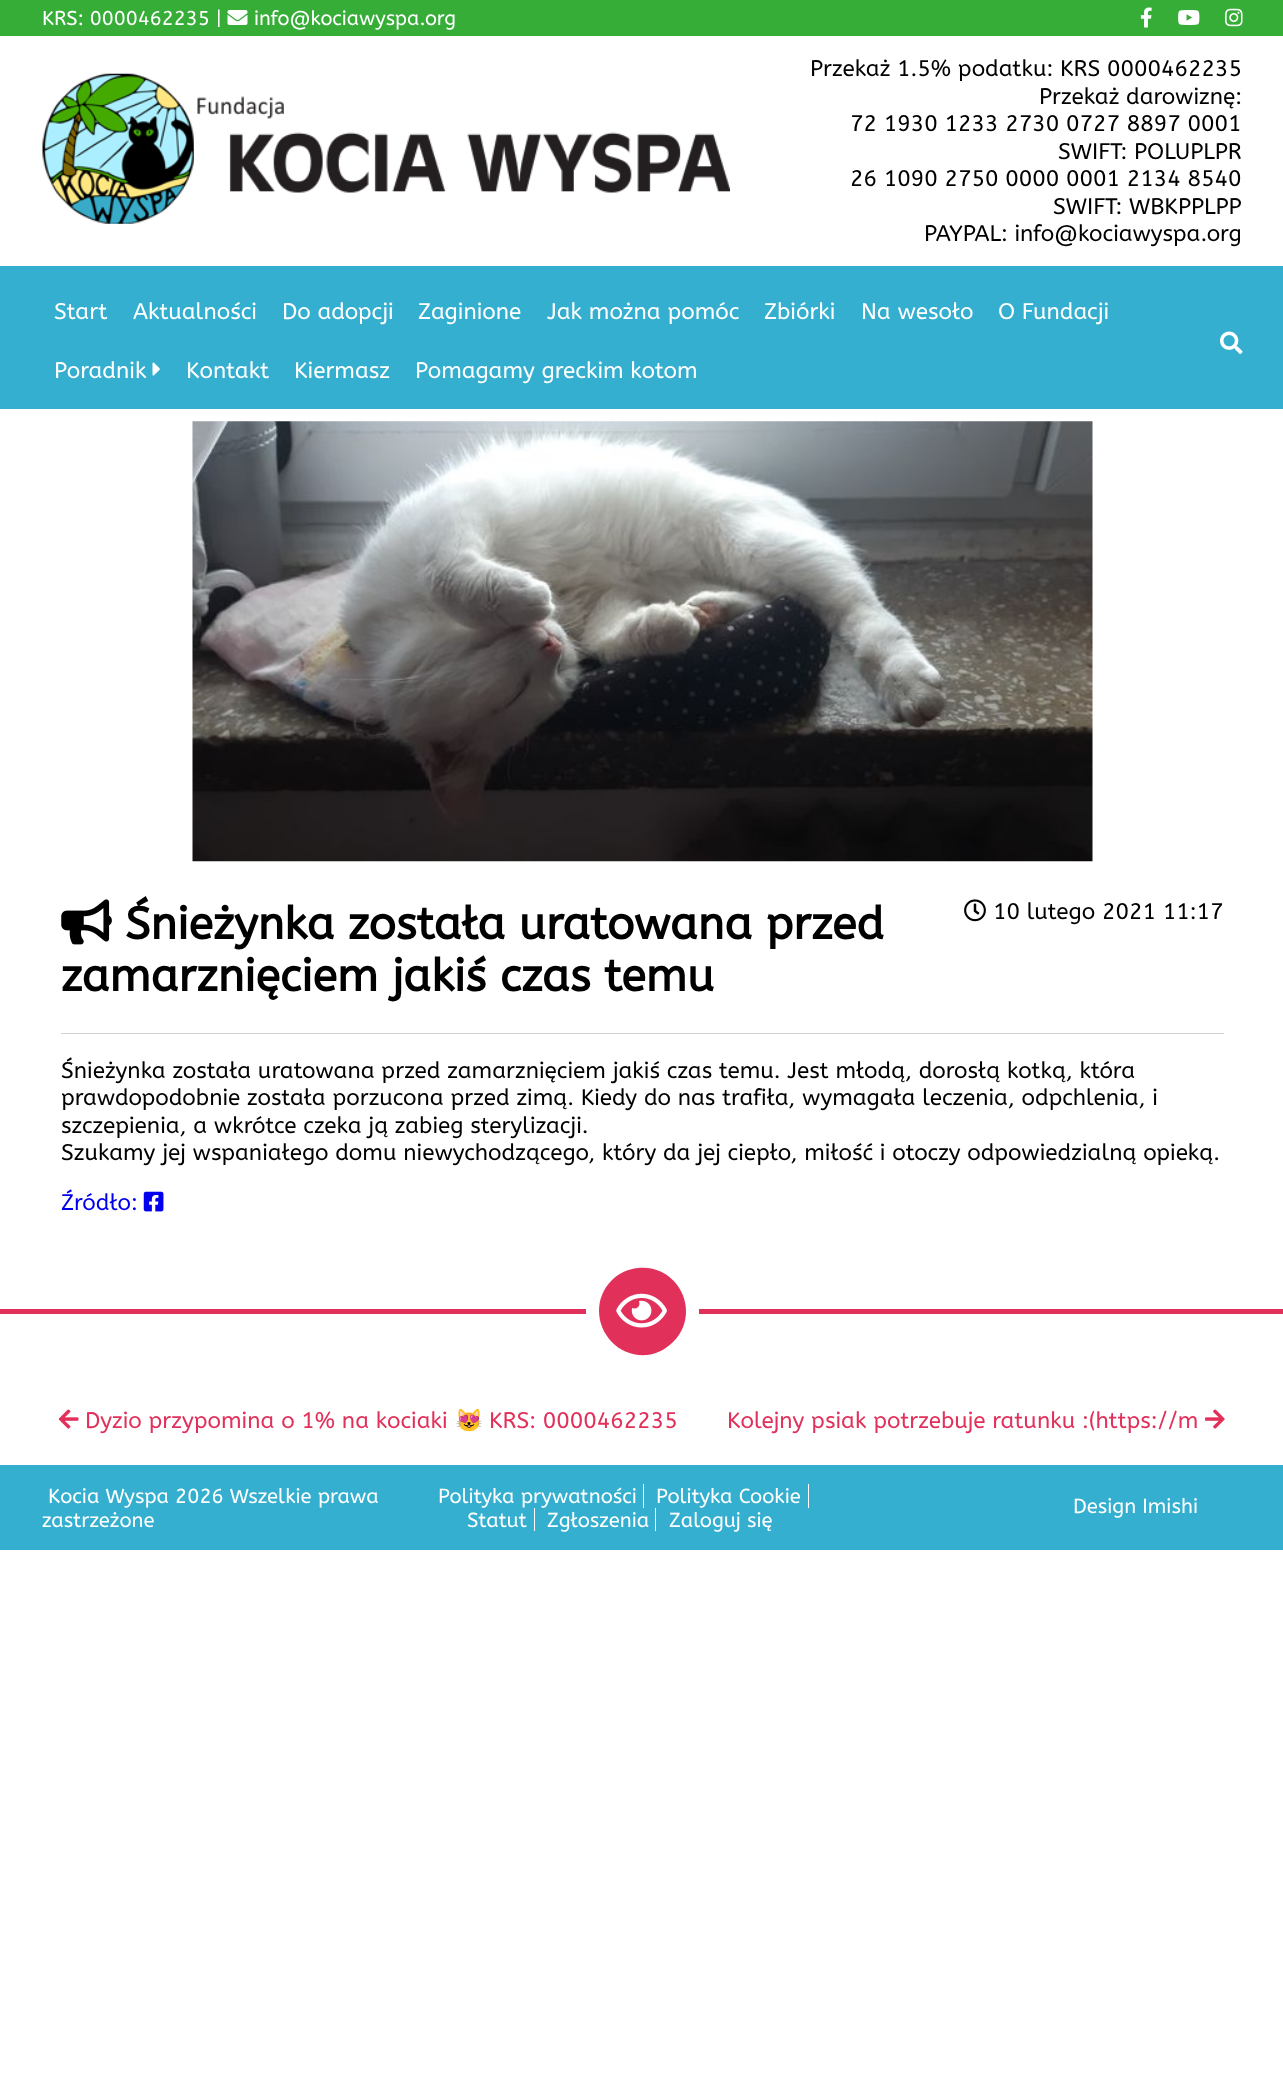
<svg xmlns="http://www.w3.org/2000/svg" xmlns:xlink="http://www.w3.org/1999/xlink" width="1283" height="2084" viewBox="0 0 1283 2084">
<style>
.cls-1{font:20px ABeeZee;fill:#ffffff}
.cls-2{font:22.5px ABeeZee;fill:#000000}
.cls-3{font:22.5px ABeeZee;fill:#ffffff}
.cls-4{font:bold 45px ABeeZee;fill:#000000}
.cls-5{font:22.5px ABeeZee;fill:#0000ee}
.cls-6{font:22.5px ABeeZee;fill:#e1315b}
.cls-7{font:22.5px Noto Color Emoji;fill:#e1315b}
.cls-8{font:20.25px ABeeZee;fill:#ffffff}
</style>
<rect width="100%" height="100%" fill="#ffffff"/>
<rect fill="#35ad37" x="0" y="0" width="1283" height="36"/>
<image xlink:href="image0.png" x="227" y="10" width="21" height="15"/>
<image xlink:href="image1.png" x="1140" y="7" width="12" height="21"/>
<image xlink:href="image2.png" x="1178" y="10" width="22" height="15"/>
<image xlink:href="image3.png" x="1225" y="8" width="18" height="19"/>
<image xlink:href="image4.png" x="42" y="73" width="688" height="151"/>
<rect fill="#35afd0" x="0" y="266" width="1283" height="143"/>
<image xlink:href="image5.png" x="152" y="362" width="8" height="14"/>
<image xlink:href="image6.png" x="1220" y="331" width="23" height="23"/>
<image xlink:href="image7.png" x="192" y="421" width="901" height="441"/>
<image xlink:href="image8.png" x="61" y="899" width="51" height="46"/>
<image xlink:href="image9.png" x="964" y="899" width="22" height="23"/>
<rect fill="#d3d3d3" x="61" y="1033" width="1163" height="1"/>
<image xlink:href="image10.png" x="143" y="1191" width="21" height="21"/>
<rect fill="#e1315b" x="0" y="1309" width="586" height="5"/>
<path fill="#e1315b" d="M612 1280C619 1273 628 1269 638 1268C679 1264 702 1313 673 1342C666 1349 657 1354 647 1355C606 1358 583 1309 612 1280Z"/>
<image xlink:href="image11.png" x="616" y="1293" width="51" height="35"/>
<rect fill="#e1315b" x="699" y="1309" width="584" height="5"/>
<image xlink:href="image12.png" x="58" y="1409" width="21" height="20"/>
<image xlink:href="image13.png" x="1205" y="1409" width="20" height="20"/>
<rect fill="#35afd0" x="0" y="1465" width="1283" height="85"/>
<rect fill="#ffffff" x="643" y="1484" width="1" height="24"/>
<rect fill="#ffffff" x="808" y="1484" width="1" height="24"/>
<rect fill="#ffffff" x="534" y="1508" width="1" height="23"/>
<rect fill="#ffffff" x="655" y="1508" width="1" height="23"/>
<text class="cls-1" x="42" y="25">KRS: 0000462235 |</text>
<text class="cls-1" x="254" y="25">info@kociawyspa.org</text>
<text class="cls-2" x="810" y="76">Przekaż 1.5% podatku: KRS 0000462235</text>
<text class="cls-2" x="1039" y="104">Przekaż darowiznę:</text>
<text class="cls-2" x="850" y="131">72 1930 1233 2730 0727 8897 0001</text>
<text class="cls-2" x="1058" y="159">SWIFT: POLUPLPR</text>
<text class="cls-2" x="850" y="186">26 1090 2750 0000 0001 2134 8540</text>
<text class="cls-2" x="1053" y="214">SWIFT: WBKPPLPP</text>
<text class="cls-2" x="924" y="241">PAYPAL: info@kociawyspa.org</text>
<text class="cls-3" x="54" y="319">Start</text>
<text class="cls-3" x="133" y="319">Aktualności</text>
<text class="cls-3" x="282" y="319">Do adopcji</text>
<text class="cls-3" x="418" y="319">Zaginione</text>
<text class="cls-3" x="547" y="319">Jak można pomóc</text>
<text class="cls-3" x="764" y="319">Zbiórki</text>
<text class="cls-3" x="861" y="319">Na wesoło</text>
<text class="cls-3" x="998" y="319">O Fundacji</text>
<text class="cls-3" x="54" y="378">Poradnik</text>
<text class="cls-3" x="186" y="378">Kontakt</text>
<text class="cls-3" x="294" y="378">Kiermasz</text>
<text class="cls-3" x="415" y="378">Pomagamy greckim kotom</text>
<text class="cls-4" x="125" y="939">Śnieżynka została uratowana przed</text>
<text class="cls-4" x="61" y="991">zamarznięciem jakiś czas temu</text>
<text class="cls-2" x="993" y="919">10 lutego 2021 11:17</text>
<text class="cls-2"><tspan x="61" y="1078">Śnieżynka została uratowana przed zamarznięciem jakiś czas temu. Jest młodą, dorosłą kotką, która</tspan><tspan x="61" y="1105">prawdopodobnie została porzucona przed zimą. Kiedy do nas trafiła, wymagała leczenia, odpchlenia, i</tspan><tspan x="61" y="1133">szczepienia, a wkrótce czeka ją zabieg sterylizacji.</tspan><tspan x="61" y="1160">Szukamy jej wspaniałego domu niewychodzącego, który da jej ciepło, miłość i otoczy odpowiedzialną opieką.</tspan></text>
<text class="cls-5" x="61" y="1210">Źródło:</text>
<text class="cls-6" x="85" y="1428">Dyzio przypomina o 1% na kociaki</text>
<text class="cls-7" x="455" y="1428">😻</text>
<text class="cls-6" x="489" y="1428">KRS: 0000462235</text>
<text class="cls-6" x="727" y="1428">Kolejny psiak potrzebuje ratunku :(https://m</text>
<text class="cls-8" x="48" y="1503">Kocia Wyspa 2026 Wszelkie prawa</text>
<text class="cls-8" x="42" y="1527">zastrzeżone</text>
<text class="cls-8" x="438" y="1503">Polityka prywatności</text>
<text class="cls-8" x="656" y="1503">Polityka Cookie</text>
<text class="cls-8" x="467" y="1527">Statut</text>
<text class="cls-8" x="547" y="1527">Zgłoszenia</text>
<text class="cls-8" x="669" y="1527">Zaloguj się</text>
<text class="cls-8" x="1073" y="1513">Design Imishi</text>
</svg>
